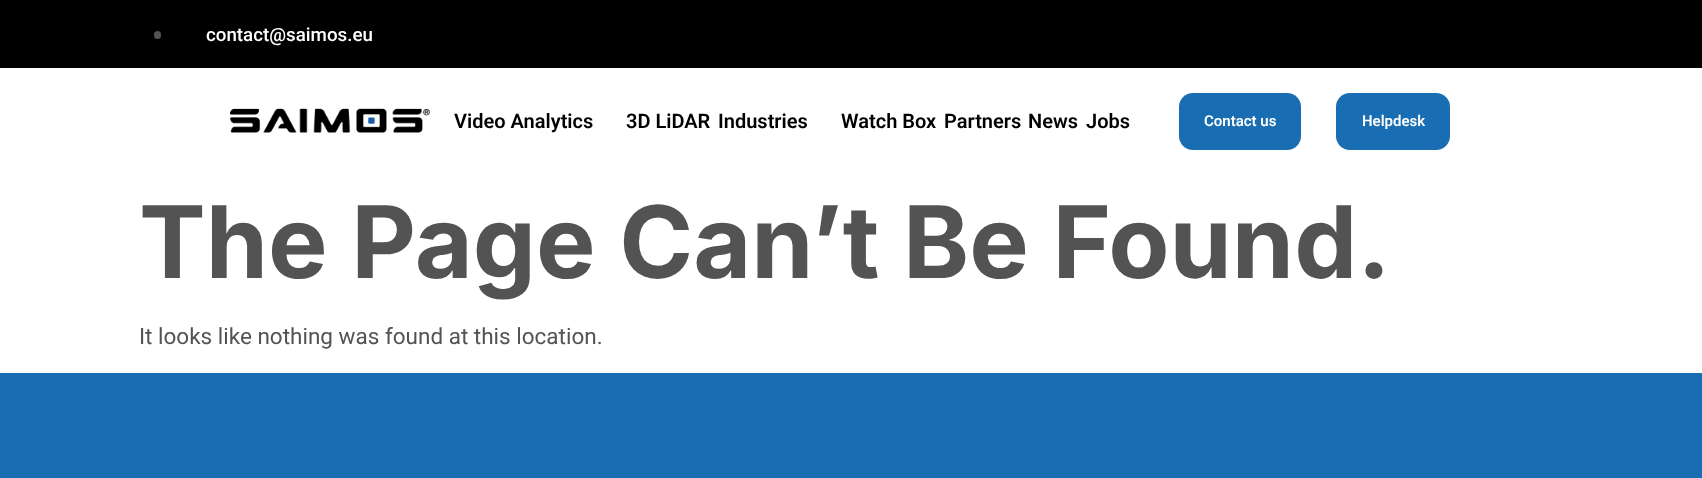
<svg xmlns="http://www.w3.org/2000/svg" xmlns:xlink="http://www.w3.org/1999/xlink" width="1702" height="478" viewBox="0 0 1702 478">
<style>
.cls-1{font:500 18.75px Roboto;fill:#ffffff}
.cls-2{font:600 20px Roboto;fill:#000000}
.cls-3{font:600 15px Roboto;fill:#ffffff}
.cls-4{font:bold 100px Inter;fill:#535353}
.cls-5{font:22.5px Roboto;fill:#535353}
</style>
<rect width="100%" height="100%" fill="#ffffff"/>
<rect fill="#000000" x="0" y="0" width="1702" height="68"/>
<rect fill="#535353" x="154" y="31" width="7" height="8" rx="3.5"/>
<image xlink:href="image0.png" x="230" y="108" width="200" height="25"/>
<rect fill="#186db3" x="1179" y="93" width="122" height="57" rx="14"/>
<rect fill="#186db3" x="1336" y="93" width="114" height="57" rx="14"/>
<rect fill="#186db3" x="0" y="373" width="1702" height="105"/>
<text class="cls-1" x="206" y="41">contact@saimos.eu</text>
<text class="cls-2" x="454" y="128">Video Analytics</text>
<text class="cls-2" x="626" y="128">3D LiDAR</text>
<text class="cls-2" x="718" y="128">Industries</text>
<text class="cls-2" x="841" y="128">Watch Box</text>
<text class="cls-2" x="944" y="128">Partners</text>
<text class="cls-2" x="1028" y="128">News</text>
<text class="cls-2" x="1086" y="128">Jobs</text>
<text class="cls-3" x="1204" y="126">Contact us</text>
<text class="cls-3" x="1362" y="126">Helpdesk</text>
<text class="cls-4" x="139" y="278">The Page Can’t Be Found.</text>
<text class="cls-5" x="139" y="344">It looks like nothing was found at this location.</text>
</svg>
